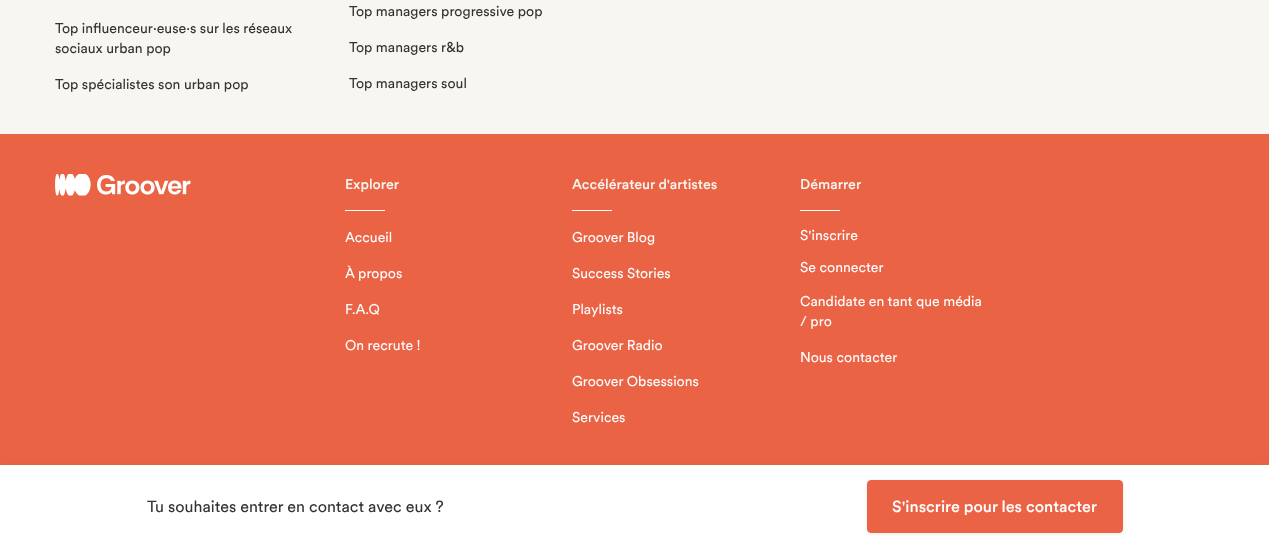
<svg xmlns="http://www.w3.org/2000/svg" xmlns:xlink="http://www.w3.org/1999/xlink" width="1269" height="548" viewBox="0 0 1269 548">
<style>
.cls-1{font:14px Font;fill:#333333}
.cls-2{font:500 14px Font;fill:#f7f6f0}
.cls-3{font:14px Font;fill:#ffffff}
.cls-4{font:16px Font;fill:#333333}
.cls-5{font:500 16px Font;fill:#ffffff}
</style>
<rect width="100%" height="100%" fill="#f7f6f0"/>
<rect fill="#eb6345" x="0" y="134" width="1269" height="331"/>
<image xlink:href="image0.png" x="55" y="174" width="136" height="22"/>
<rect fill="#ffffff" x="345" y="210" width="40" height="1"/>
<rect fill="#ffffff" x="572" y="210" width="40" height="1"/>
<rect fill="#ffffff" x="800" y="210" width="40" height="1"/>
<rect fill="#333333" fill-opacity="0.1" filter="blur(8px)" x="0" y="469" width="1269" height="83"/>
<rect fill="#ffffff" x="0" y="465" width="1269" height="83"/>
<rect fill="#333333" fill-opacity="0.1" filter="blur(2px)" x="867" y="481" width="256" height="53" rx="4"/>
<rect fill="#eb6345" stroke="#eb6345" x="867.5" y="480.5" width="255" height="52" rx="3.5"/>
<text class="cls-1"><tspan x="55" y="33">Top influenceur·euse·s sur les réseaux</tspan><tspan x="55" y="53">sociaux urban pop</tspan></text>
<text class="cls-1" x="55" y="89">Top spécialistes son urban pop</text>
<text class="cls-1" x="349" y="16">Top managers progressive pop</text>
<text class="cls-1" x="349" y="52">Top managers r&amp;b</text>
<text class="cls-1" x="349" y="88">Top managers soul</text>
<text class="cls-2" x="345" y="189">Explorer</text>
<text class="cls-3" x="345" y="242">Accueil</text>
<text class="cls-3" x="345" y="278">À propos</text>
<text class="cls-3" x="345" y="314">F.A.Q</text>
<text class="cls-3" x="345" y="350">On recrute !</text>
<text class="cls-2" x="572" y="189">Accélérateur d'artistes</text>
<text class="cls-3" x="572" y="242">Groover Blog</text>
<text class="cls-3" x="572" y="278">Success Stories</text>
<text class="cls-3" x="572" y="314">Playlists</text>
<text class="cls-3" x="572" y="350">Groover Radio</text>
<text class="cls-3" x="572" y="386">Groover Obsessions</text>
<text class="cls-3" x="572" y="422">Services</text>
<text class="cls-2" x="800" y="189">Démarrer</text>
<text class="cls-3" x="800" y="240">S'inscrire</text>
<text class="cls-3" x="800" y="272">Se connecter</text>
<text class="cls-3"><tspan x="800" y="306">Candidate en tant que média</tspan><tspan x="800" y="326">/ pro</tspan></text>
<text class="cls-3" x="800" y="362">Nous contacter</text>
<text class="cls-4" x="147" y="512">Tu souhaites entrer en contact avec eux ?</text>
<text class="cls-5" x="892" y="512">S'inscrire pour les contacter</text>
</svg>
